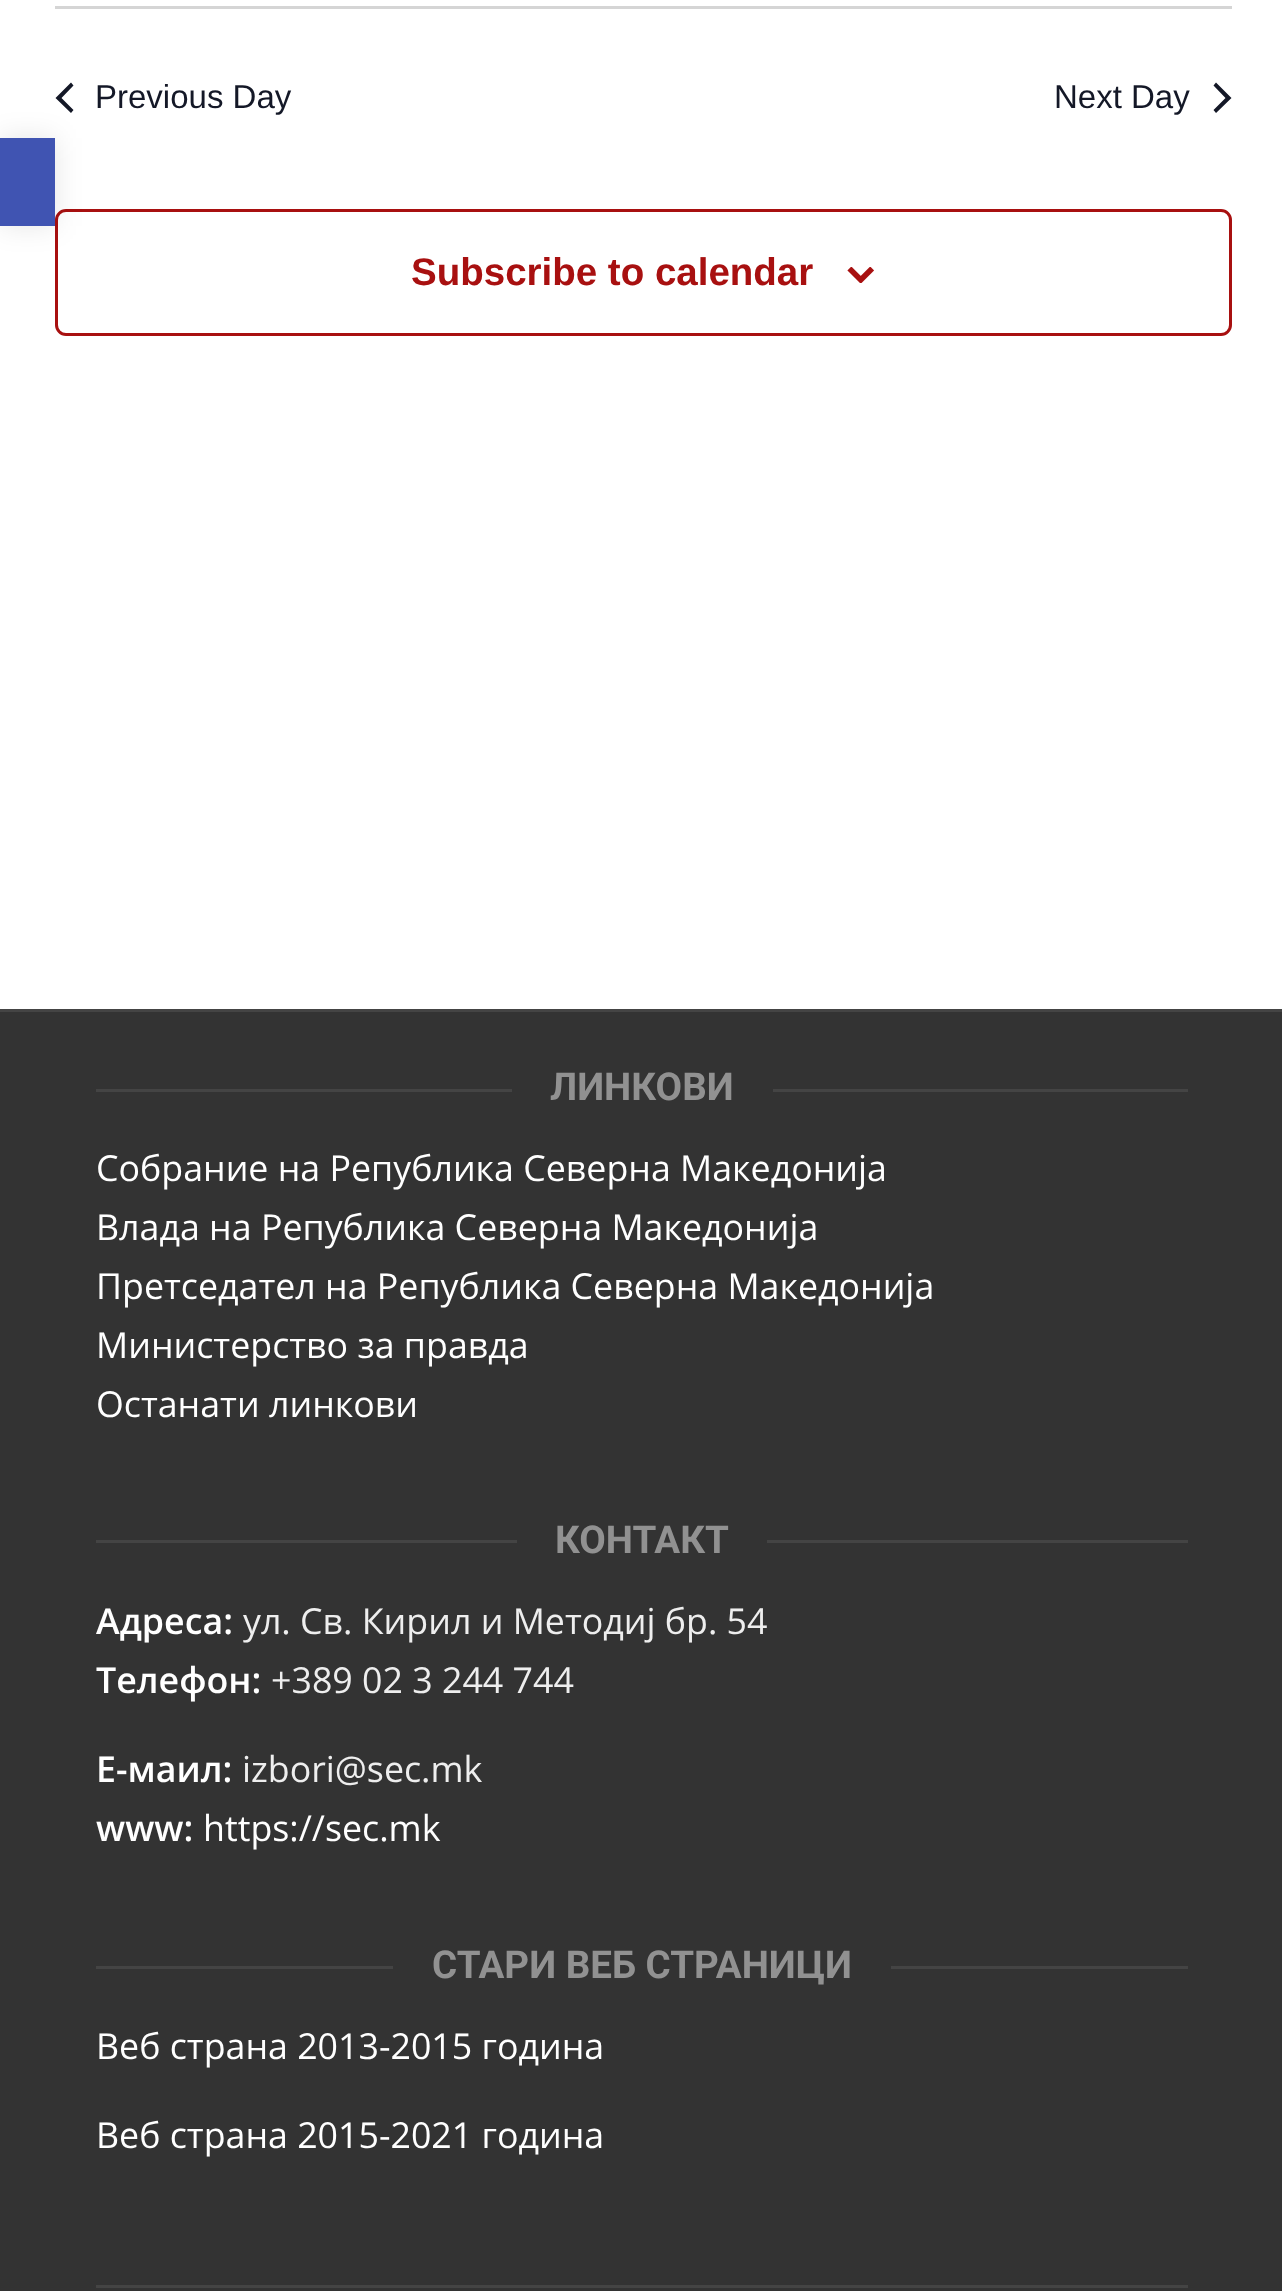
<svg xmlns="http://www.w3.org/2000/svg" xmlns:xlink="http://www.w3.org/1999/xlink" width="1282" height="2291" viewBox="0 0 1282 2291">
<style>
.cls-1{font:33px Liberation Sans;fill:#141827}
.cls-2{font:bold 38.5px Liberation Sans;fill:#a81010}
.cls-3{font:bold 38.5px Roboto;fill:#919191}
.cls-4{font:35.75px Open Sans;fill:#ffffff}
.cls-5{font:600 35.75px Open Sans;fill:#ffffff}
.cls-6{font:35.75px Open Sans;fill:#eeeeee}
</style>
<rect width="100%" height="100%" fill="#333333"/>
<rect fill="#ffffff" x="0" y="0" width="1282" height="1009"/>
<path fill="#141827" d="M73.5 110L71 113L55.5 98L71 82.5L73.5 85.5L61.5 98Z"/>
<rect fill="none" stroke="#a81010" stroke-width="3" x="56.5" y="210.5" width="1174" height="124" rx="9.5"/>
<rect fill="#000000" fill-opacity="0.1" filter="blur(14px)" x="0" y="138" width="55" height="88"/>
<rect fill="#4054b2" x="0" y="138" width="55" height="88"/>
<rect fill="#d5d5d5" x="55" y="6" width="1177" height="3"/>
<path fill="#141827" d="M1213.5 85.5L1216 82.5L1231.5 98L1216 113L1213.5 110L1225.5 98Z"/>
<image xlink:href="image0.png" x="847" y="267" width="27" height="16"/>
<rect fill="#444444" x="0" y="1009" width="1282" height="3"/>
<rect fill="#444444" x="96" y="1089" width="416" height="3"/>
<rect fill="#444444" x="773" y="1089" width="415" height="3"/>
<rect fill="#444444" x="96" y="1540" width="421" height="3"/>
<rect fill="#444444" x="767" y="1540" width="421" height="3"/>
<rect fill="#444444" x="96" y="1966" width="297" height="3"/>
<rect fill="#444444" x="891" y="1966" width="297" height="3"/>
<rect fill="#444444" x="96" y="2285" width="1092" height="3"/>
<text class="cls-1" x="95" y="108">Previous Day</text>
<text class="cls-1" x="1054" y="108">Next Day</text>
<text class="cls-2" x="411" y="285">Subscribe to calendar</text>
<text class="cls-3" x="550" y="1100">ЛИНКОВИ</text>
<text class="cls-4"><tspan x="96" y="1181">Собрание на Република Северна Македонија</tspan><tspan x="96" y="1240">Влада на Република Северна Македонија</tspan><tspan x="96" y="1299">Претседател на Република Северна Македонија</tspan><tspan x="96" y="1358">Министерство за правда</tspan><tspan x="96" y="1417">Останати линкови</tspan></text>
<text class="cls-3" x="555" y="1553">КОНТАКТ</text>
<text class="cls-5" x="96" y="1634">Адреса:</text>
<text class="cls-6" x="243" y="1634">ул. Св. Кирил и Методиј бр. 54</text>
<text class="cls-5" x="96" y="1693">Телефон:</text>
<text class="cls-6" x="271" y="1693">+389 02 3 244 744</text>
<text class="cls-5" x="96" y="1782">Е-маил:</text>
<text class="cls-6" x="242" y="1782">izbori@sec.mk</text>
<text class="cls-5" x="96" y="1841">www:</text>
<text class="cls-4" x="203" y="1841">https://sec.mk</text>
<text class="cls-3" x="432" y="1978">СТАРИ ВЕБ СТРАНИЦИ</text>
<text class="cls-4" x="96" y="2059">Веб страна 2013-2015 година</text>
<text class="cls-4" x="96" y="2148">Веб страна 2015-2021 година</text>
</svg>
